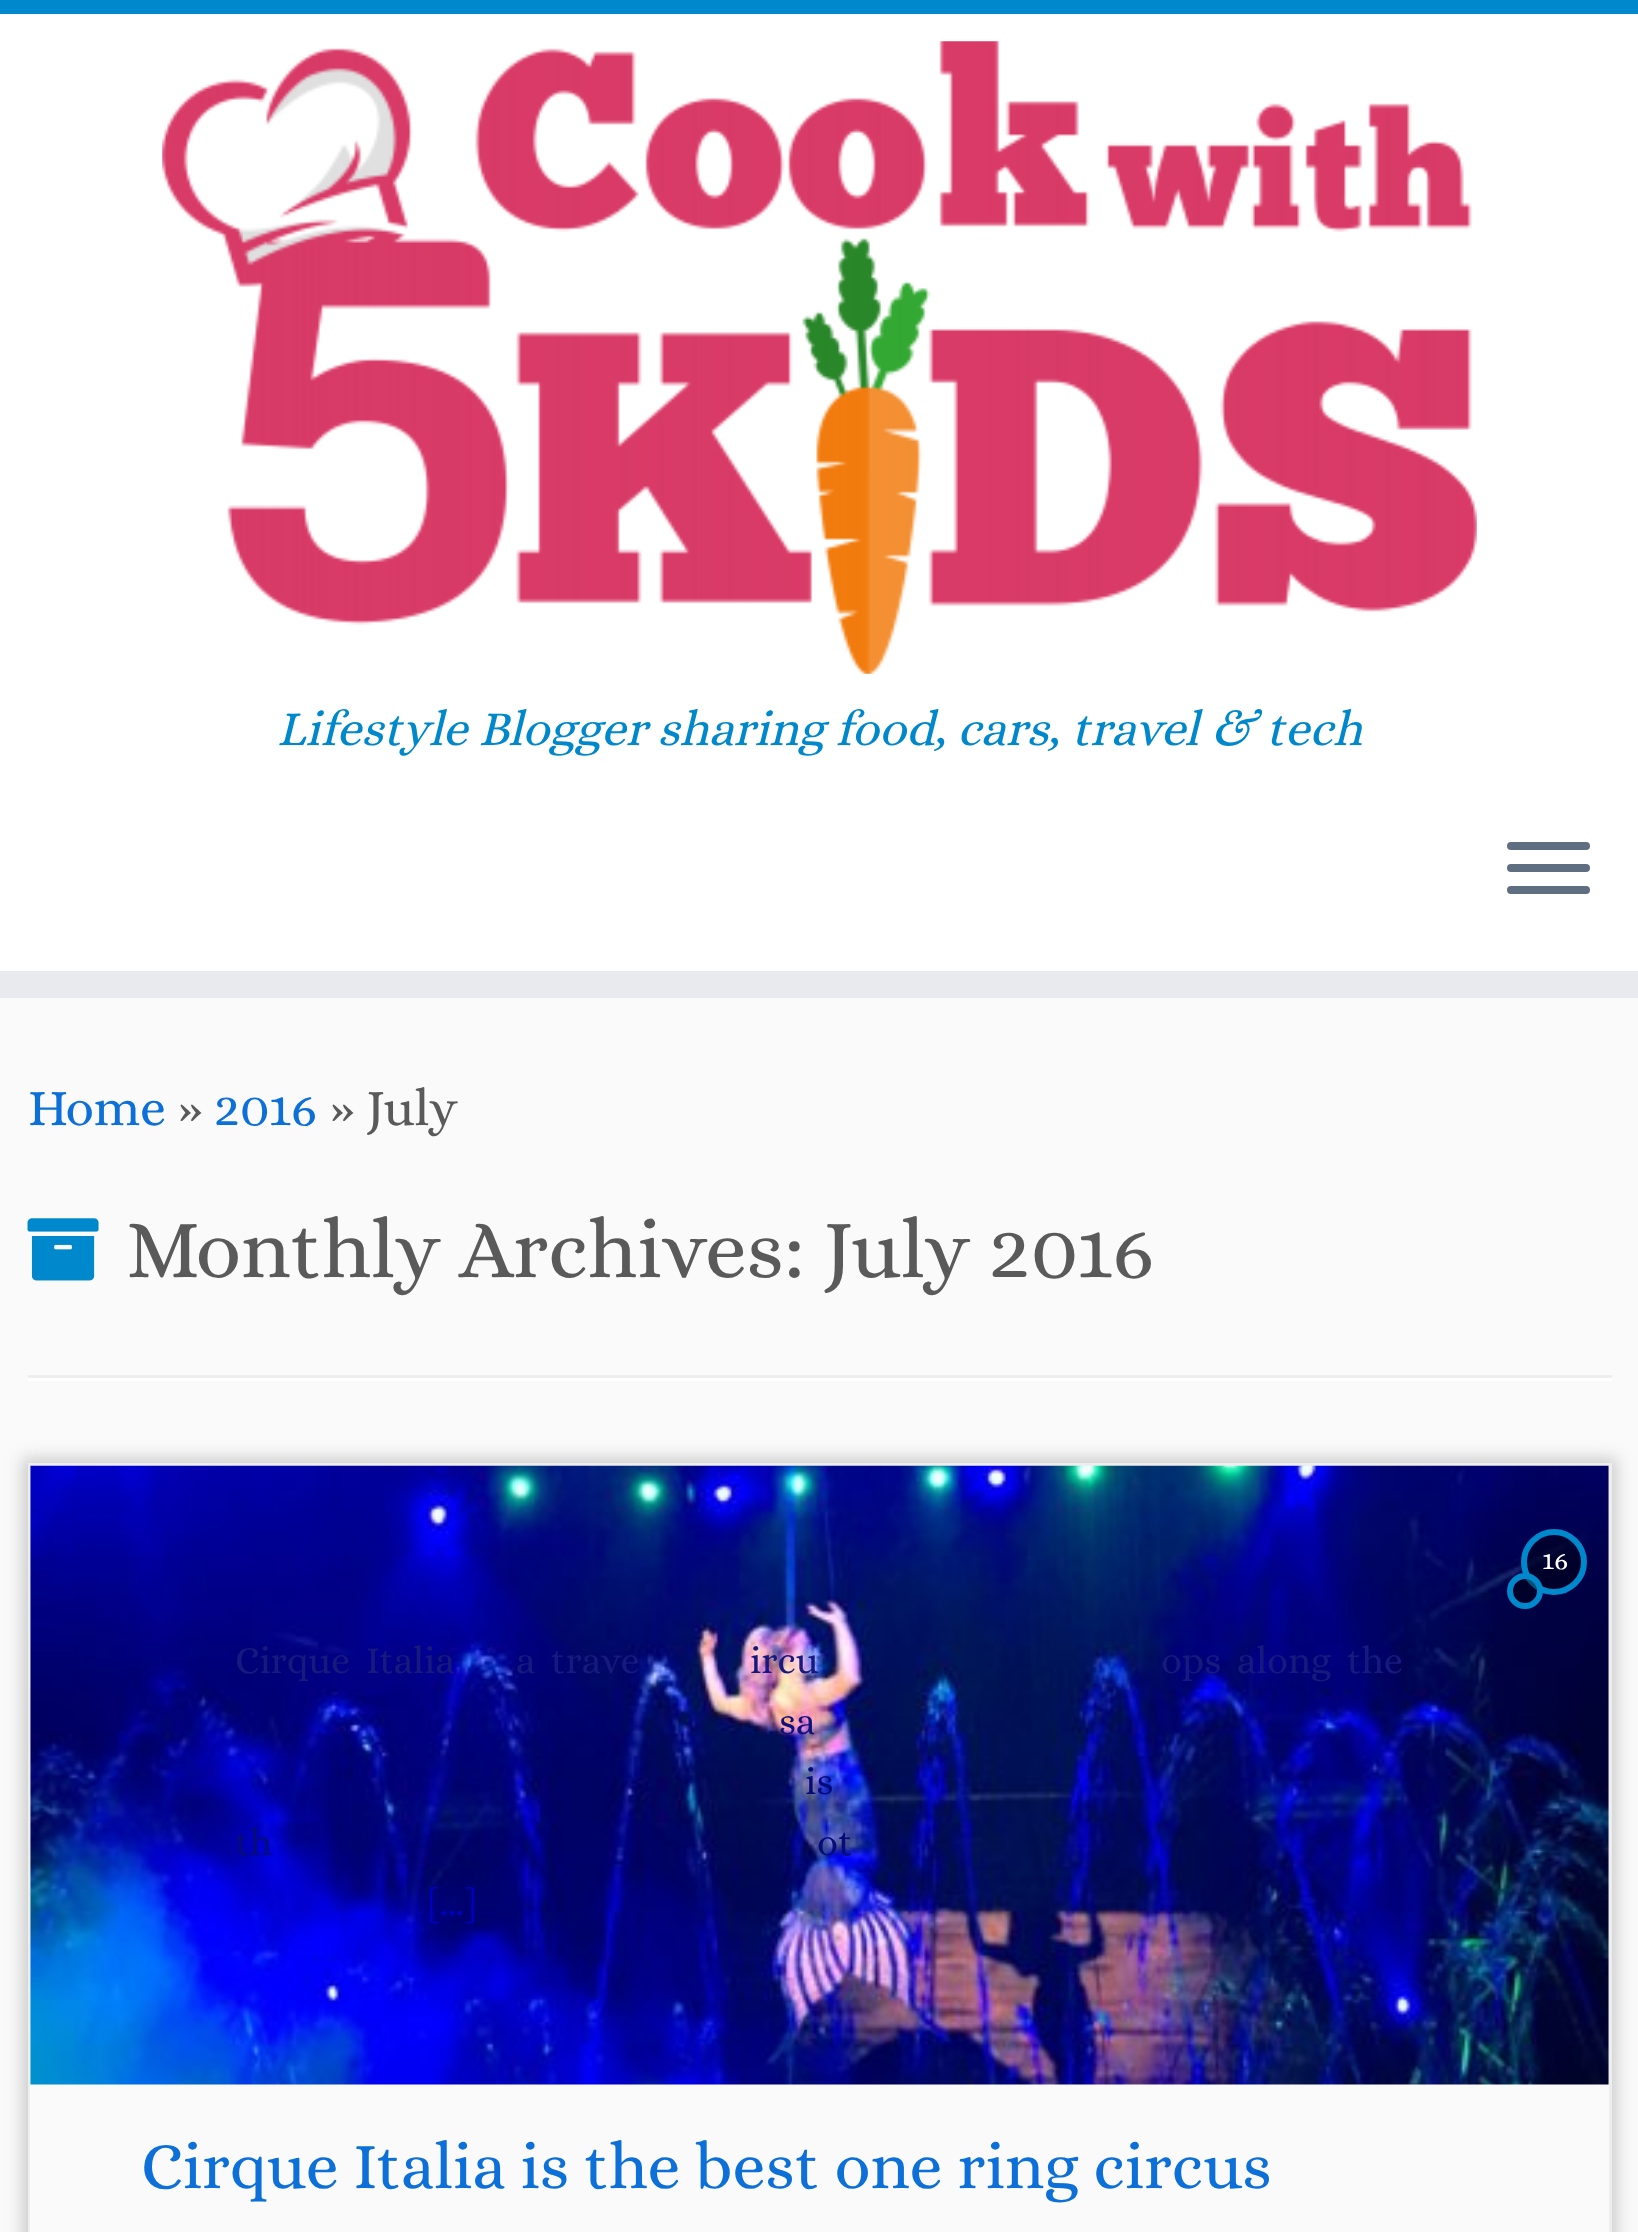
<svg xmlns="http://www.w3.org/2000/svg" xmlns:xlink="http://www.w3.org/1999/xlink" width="1638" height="2232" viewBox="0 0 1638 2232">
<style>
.cls-1{font:italic 49.5px Alice;fill:#0088cc}
.cls-2{font:52px Alice;fill:#0d6fd8}
.cls-3{font:52px Alice;fill:#5a5a5a}
.cls-4{font:83.6px Alice;fill:#5a5a5a}
.cls-5{font:28px Alice;fill:#ffffff}
.cls-6{font:38.5px Alice;fill:#16197d}
.cls-7{font:38.5px Alice;fill:#10127a}
.cls-8{font:38.5px Alice;fill:#050c79}
.cls-9{font:38.5px Alice;fill:#0001bb}
.cls-10{font:66px Alice;fill:#0d6fd8}
</style>
<defs>
<clipPath id="clip1"><path d="M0 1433H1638V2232H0ZM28 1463H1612V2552H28Z" clip-rule="evenodd"/></clipPath>
</defs>
<rect width="100%" height="100%" fill="#fafafa"/>
<rect fill="#ffffff" x="0" y="14" width="1638" height="957"/>
<rect fill="#0088cc" x="0" y="0" width="1638" height="14"/>
<rect fill="#e9eaee" x="0" y="971" width="1638" height="27"/>
<image xlink:href="image0.png" x="162" y="41" width="1315" height="633"/>
<rect fill="#5f6f81" x="1507" y="842" width="83" height="8" rx="4"/>
<rect fill="#5f6f81" x="1507" y="864" width="83" height="8" rx="4"/>
<rect fill="#5f6f81" x="1507" y="886" width="83" height="8" rx="4"/>
<image xlink:href="image1.png" x="27" y="1218" width="72" height="63"/>
<rect fill="#eeeeee" x="28" y="1375" width="1584" height="3"/>
<rect fill="#ffffff" x="28" y="1378" width="1584" height="3"/>
<g clip-path="url(#clip1)">
<rect fill="#cccccc" filter="blur(8px)" x="22" y="1458" width="1595" height="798"/>
</g>
<rect fill="#eeeeee" x="28" y="1463" width="1584" height="3"/>
<path fill="#eeeeee" d="M1612 1463V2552L1609 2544V1466Z"/>
<path fill="#eeeeee" d="M28 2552V1463L30 1466V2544Z"/>
<image xlink:href="image2.png" x="30" y="1465" width="1579" height="620"/>
<circle fill="#000000" fill-opacity="0.4" stroke="#0088cc" stroke-width="6" cx="1554" cy="1562" r="30"/>
<circle fill="#000000" fill-opacity="0.4" stroke="#0088cc" stroke-width="6" cx="1525" cy="1591" r="15"/>
<text class="cls-1" x="277" y="745">Lifestyle Blogger sharing food, cars, travel &amp; tech</text>
<text class="cls-2" x="28" y="1125">Home</text>
<text class="cls-3" x="178" y="1125">»</text>
<text class="cls-2" x="214" y="1125">2016</text>
<text class="cls-3" x="330" y="1125">» July</text>
<text class="cls-4" x="126" y="1277">Monthly Archives: July 2016</text>
<text class="cls-5" x="1542" y="1569">16</text>
<text class="cls-6" x="235" y="1673" word-spacing="7">Cirque Italia</text>
<text class="cls-6" x="516" y="1673" word-spacing="7">a trave</text>
<text class="cls-6" x="750" y="1673" word-spacing="7">ircu</text>
<text class="cls-6" x="1161" y="1673" word-spacing="7">ops along the</text>
<text class="cls-7" x="779" y="1734" word-spacing="10">sa</text>
<text class="cls-8" x="805" y="1794" word-spacing="1">is</text>
<text class="cls-8" x="235" y="1855" word-spacing="6">th</text>
<text class="cls-8" x="817" y="1855" word-spacing="6">ot</text>
<text class="cls-9" x="428" y="1915">[…]</text>
<text class="cls-10" x="141" y="2188">Cirque Italia is the best one ring circus</text>
</svg>
